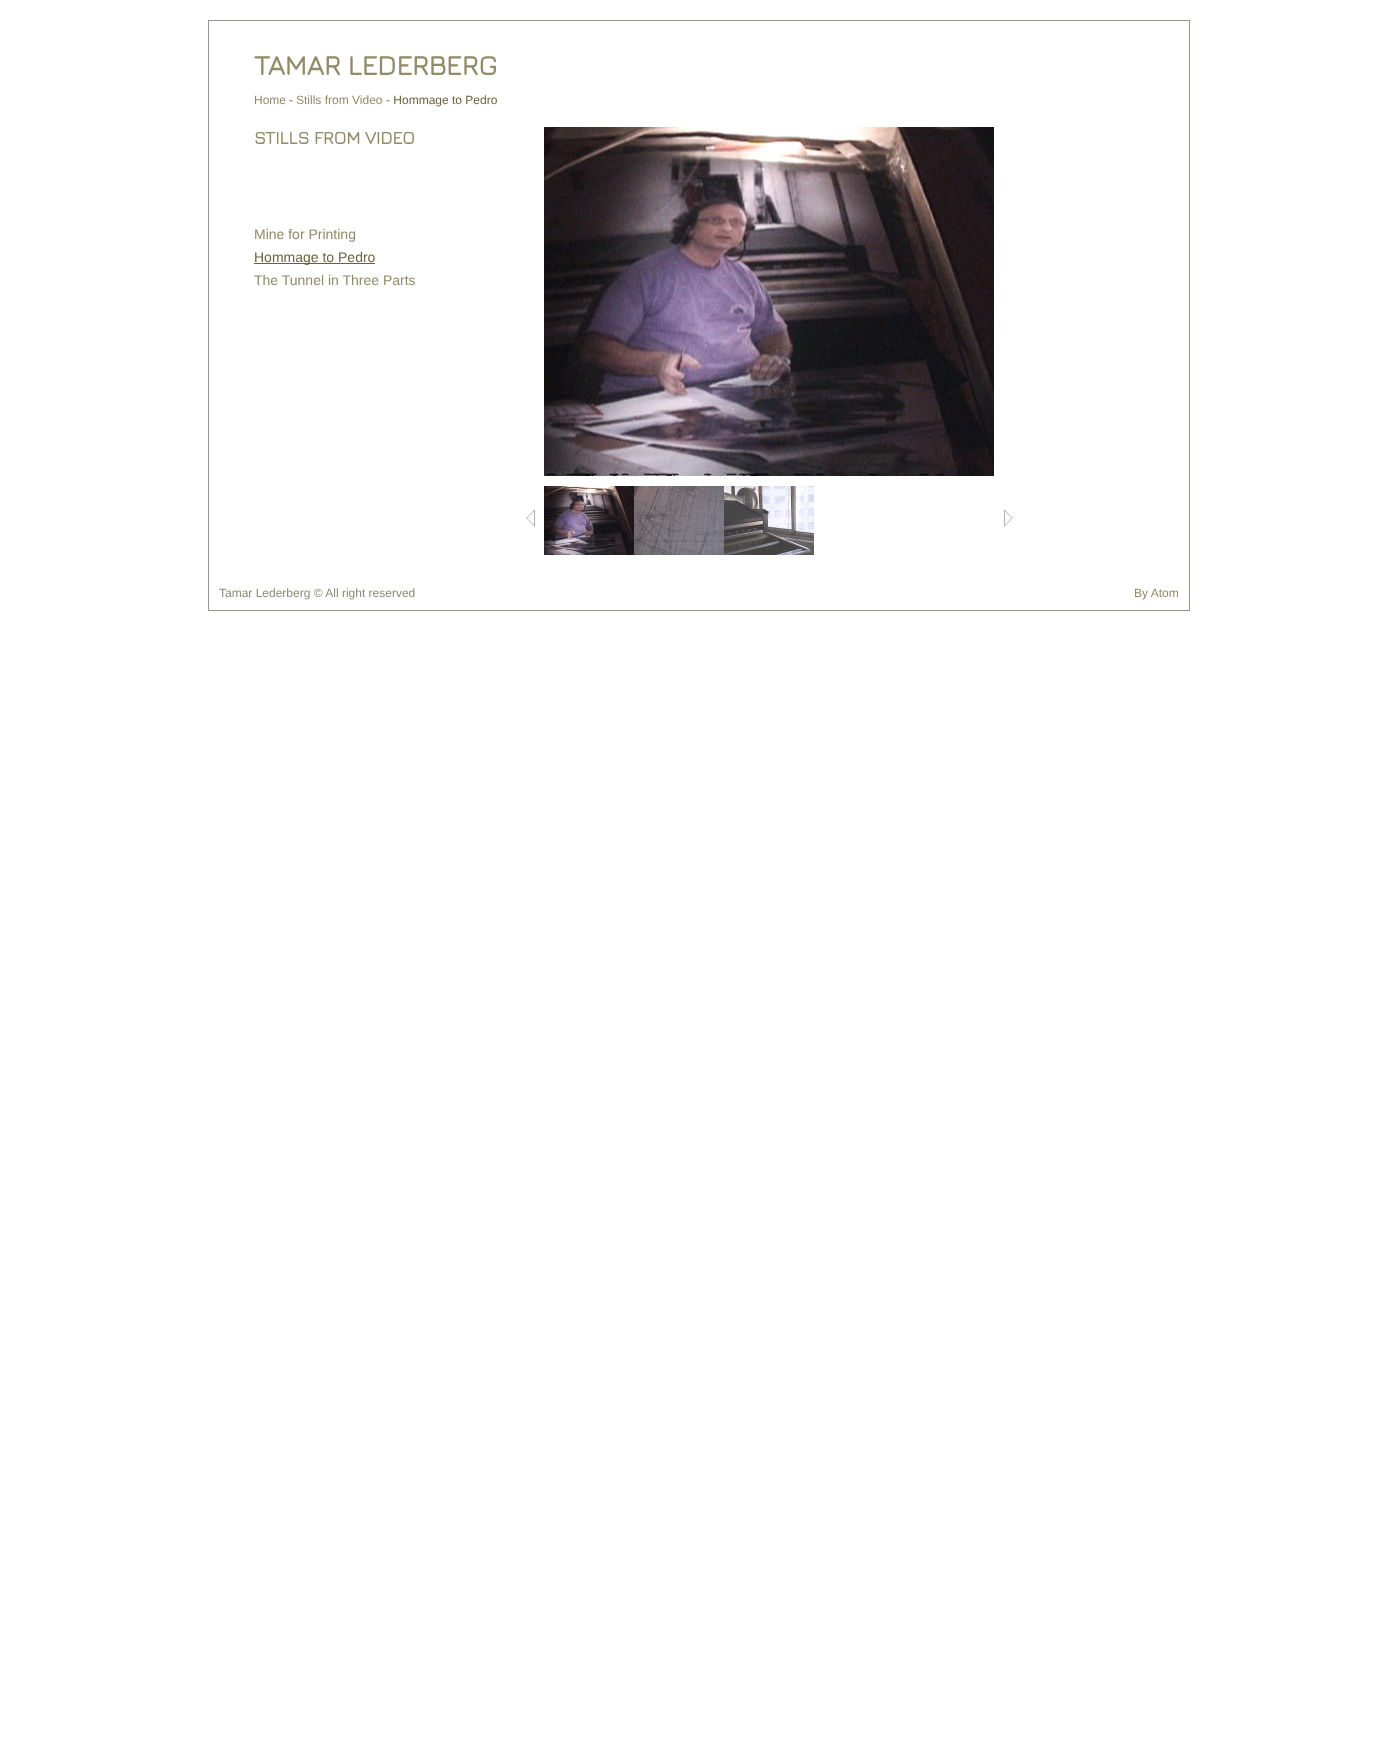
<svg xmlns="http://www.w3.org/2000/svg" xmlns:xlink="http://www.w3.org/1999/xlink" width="1397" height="1751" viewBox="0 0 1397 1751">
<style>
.cls-1{font:bold 28px Jura;fill:#908b68}
.cls-2{font:12px Liberation Sans;fill:#908b68}
.cls-3{font:12px Liberation Sans;fill:#6a623d}
.cls-4{font:bold 18px Jura;fill:#908b68}
.cls-5{font:14px Liberation Sans;fill:#908b68}
.cls-6{font:14px Liberation Sans;fill:#6a623d}
.cls-7{font:12px Liberation Sans;fill:#898b76}
</style>
<rect width="100%" height="100%" fill="#ffffff"/>
<rect fill="none" stroke="#93958a" x="208.5" y="20.5" width="981" height="590"/>
<rect fill="#6a623d" x="254" y="263" width="121" height="1"/>
<image xlink:href="image0.png" x="544" y="127" width="450" height="349"/>
<image xlink:href="image1.png" x="525" y="509" width="11" height="18"/>
<image xlink:href="image2.png" x="544" y="486" width="90" height="69"/>
<image xlink:href="image3.png" x="634" y="486" width="90" height="69"/>
<image xlink:href="image4.png" x="724" y="486" width="90" height="69"/>
<image xlink:href="image5.png" x="1003" y="509" width="11" height="18"/>
<text class="cls-1" x="254" y="75">TAMAR LEDERBERG</text>
<text class="cls-2" x="254" y="104">Home</text>
<text class="cls-3" x="289" y="104">-</text>
<text class="cls-2" x="296" y="104">Stills from Video</text>
<text class="cls-3" x="386" y="104">- Hommage to Pedro</text>
<text class="cls-4" x="254" y="144">STILLS FROM VIDEO</text>
<text class="cls-5" x="254" y="239">Mine for Printing</text>
<text class="cls-6" x="254" y="262">Hommage to Pedro</text>
<text class="cls-5" x="254" y="285">The Tunnel in Three Parts</text>
<text class="cls-7" x="219" y="597">Tamar Lederberg © All right reserved</text>
<text class="cls-2" x="1134" y="597">By Atom</text>
</svg>
